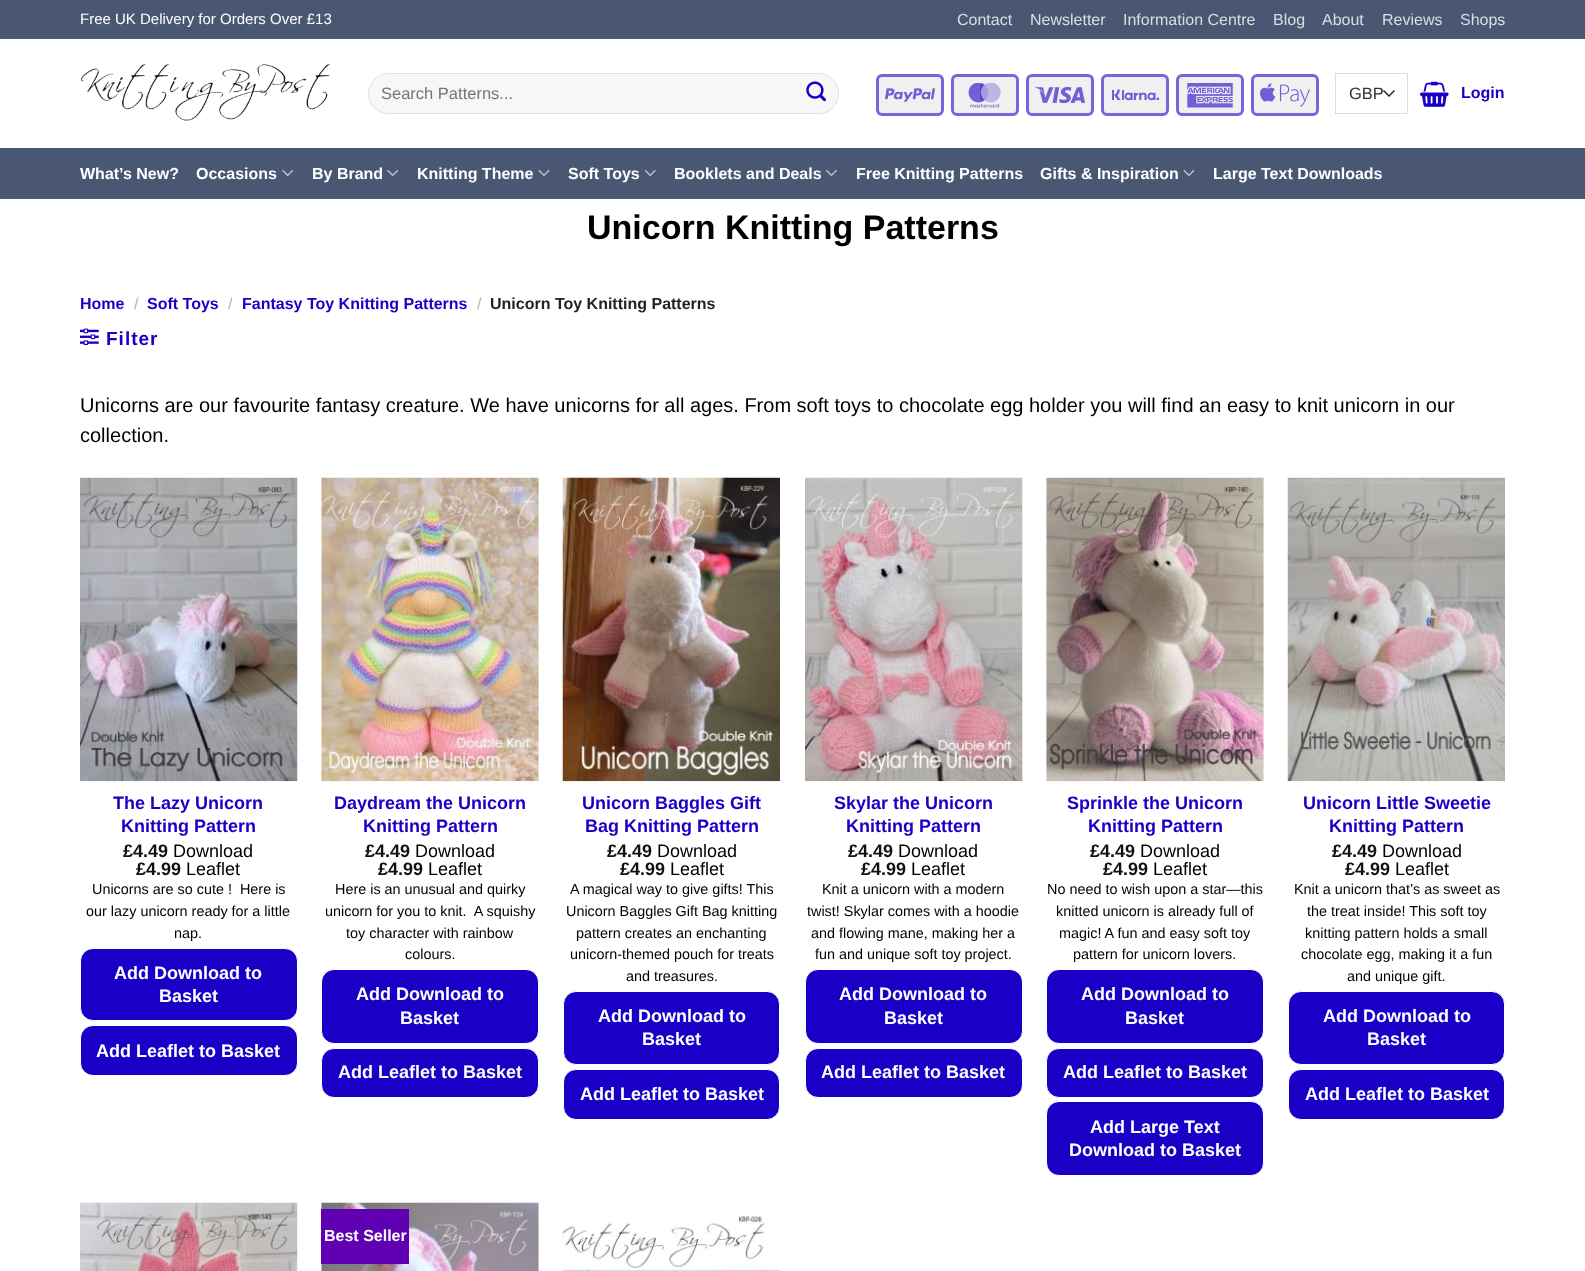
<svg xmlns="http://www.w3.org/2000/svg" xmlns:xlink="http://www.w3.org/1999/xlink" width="1585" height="1271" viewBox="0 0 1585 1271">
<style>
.cls-1{font:15px Liberation Sans;fill:#ffffff}
.cls-2{font:16px Liberation Sans;fill:#dbdde3}
.cls-3{font:16.5px Liberation Sans;fill:#757575}
.cls-4{font:16.5px Liberation Sans;fill:#333333}
.cls-5{font:bold 16px Liberation Sans;fill:#1a00c6}
.cls-6{font:bold 16px Liberation Sans;fill:#ffffff}
.cls-7{font:bold 34px Liberation Sans;fill:#000000}
.cls-8{font:16px Liberation Sans;fill:#b2b2b2}
.cls-9{font:bold 16px Liberation Sans;fill:#222222}
.cls-10{font:bold 19px Liberation Sans;letter-spacing:1px;fill:#1a00c6}
.cls-11{font:20px Liberation Sans;fill:#000000}
.cls-12{font:bold 18px Liberation Sans;fill:#1a00c6}
.cls-13{font:bold 18px Liberation Sans;fill:#111111}
.cls-14{font:18px Liberation Sans;fill:#000000}
.cls-15{font:14.4px Liberation Sans;fill:#000000}
.cls-16{font:bold 18px Liberation Sans;fill:#ffffff}
</style>
<rect width="100%" height="100%" fill="#ffffff"/>
<rect fill="#4a5773" x="0" y="0" width="1585" height="39"/>
<image xlink:href="image0.png" x="80" y="64" width="250" height="57"/>
<rect fill="#f7f7f7" x="368" y="73" width="471" height="41" rx="20.5"/>
<rect fill="none" stroke="#000000" stroke-opacity="0.09" x="368.5" y="73.5" width="470" height="40" rx="20"/>
<image xlink:href="image1.png" x="806" y="81" width="20" height="21"/>
<rect fill="#f0f0f0" stroke="#7666dd" stroke-width="3" x="877.5" y="75.5" width="65" height="39" rx="4.5"/>
<image xlink:href="image2.png" x="885" y="88" width="50" height="14"/>
<rect fill="#f0f0f0" stroke="#7666dd" stroke-width="3" x="952.5" y="75.5" width="65" height="39" rx="4.5"/>
<image xlink:href="image3.png" x="968" y="83" width="33" height="25"/>
<rect fill="#f0f0f0" stroke="#7666dd" stroke-width="3" x="1027.5" y="75.5" width="65" height="39" rx="4.5"/>
<image xlink:href="image4.png" x="1035" y="86" width="50" height="18"/>
<rect fill="#f0f0f0" stroke="#7666dd" stroke-width="3" x="1102.5" y="75.5" width="65" height="39" rx="4.5"/>
<image xlink:href="image5.png" x="1112" y="89" width="48" height="12"/>
<rect fill="#f0f0f0" stroke="#7666dd" stroke-width="3" x="1177.5" y="75.5" width="65" height="39" rx="4.5"/>
<image xlink:href="image6.png" x="1187" y="83" width="46" height="25"/>
<rect fill="#f0f0f0" stroke="#7666dd" stroke-width="3" x="1252.5" y="75.5" width="65" height="39" rx="4.5"/>
<image xlink:href="image7.png" x="1260" y="83" width="50" height="24"/>
<path fill="none" stroke="#333333" stroke-width="1.7" stroke-linecap="round" stroke-linejoin="round" d="M1384 91L1389 96L1394 91"/>
<rect fill="none" stroke="#dddddd" x="1335.5" y="73.5" width="72" height="40"/>
<image xlink:href="image8.png" x="1420" y="81" width="29" height="26"/>
<rect fill="#4a5773" x="0" y="148" width="1585" height="51"/>
<image xlink:href="image9.png" x="282" y="169" width="12" height="8"/>
<image xlink:href="image9.png" x="387" y="169" width="12" height="8"/>
<image xlink:href="image10.png" x="538" y="169" width="12" height="8"/>
<image xlink:href="image11.png" x="644" y="169" width="12" height="8"/>
<image xlink:href="image12.png" x="825" y="169" width="12" height="8"/>
<image xlink:href="image10.png" x="1183" y="169" width="12" height="8"/>
<image xlink:href="image13.png" x="80" y="328" width="19" height="17"/>
<image xlink:href="image14.png" x="80" y="477" width="218" height="305"/>
<rect fill="#1a00c6" stroke="#ffffff" x="80.5" y="948.5" width="217" height="72" rx="12.5"/>
<rect fill="#1a00c6" stroke="#ffffff" x="80.5" y="1025.5" width="217" height="50" rx="12.5"/>
<image xlink:href="image15.png" x="321" y="477" width="218" height="305"/>
<rect fill="#1a00c6" stroke="#ffffff" x="321.5" y="969.5" width="217" height="74" rx="12.5"/>
<rect fill="#1a00c6" stroke="#ffffff" x="321.5" y="1048.5" width="217" height="49" rx="12.5"/>
<image xlink:href="image16.png" x="562" y="477" width="218" height="305"/>
<rect fill="#1a00c6" stroke="#ffffff" x="563.5" y="991.5" width="216" height="73" rx="12.5"/>
<rect fill="#1a00c6" stroke="#ffffff" x="563.5" y="1069.5" width="216" height="50" rx="12.5"/>
<image xlink:href="image17.png" x="805" y="477" width="218" height="305"/>
<rect fill="#1a00c6" stroke="#ffffff" x="805.5" y="969.5" width="217" height="74" rx="12.5"/>
<rect fill="#1a00c6" stroke="#ffffff" x="805.5" y="1048.5" width="217" height="49" rx="12.5"/>
<image xlink:href="image18.png" x="1046" y="477" width="218" height="305"/>
<rect fill="#1a00c6" stroke="#ffffff" x="1046.5" y="969.5" width="217" height="74" rx="12.5"/>
<rect fill="#1a00c6" stroke="#ffffff" x="1046.5" y="1048.5" width="217" height="49" rx="12.5"/>
<rect fill="#1a00c6" stroke="#ffffff" x="1046.5" y="1101.5" width="217" height="74" rx="12.5"/>
<image xlink:href="image19.png" x="1287" y="477" width="218" height="305"/>
<rect fill="#1a00c6" stroke="#ffffff" x="1288.5" y="991.5" width="216" height="73" rx="12.5"/>
<rect fill="#1a00c6" stroke="#ffffff" x="1288.5" y="1069.5" width="216" height="50" rx="12.5"/>
<image xlink:href="image20.png" x="80" y="1202" width="218" height="69"/>
<image xlink:href="image21.png" x="321" y="1202" width="218" height="69"/>
<rect fill="#5f00b2" x="321" y="1209" width="88" height="55"/>
<image xlink:href="image22.png" x="562" y="1216" width="218" height="55"/>
<text class="cls-1" x="80" y="24">Free UK Delivery for Orders Over £13</text>
<text class="cls-2" x="957" y="25">Contact</text>
<text class="cls-2" x="1030" y="25">Newsletter</text>
<text class="cls-2" x="1123" y="25">Information Centre</text>
<text class="cls-2" x="1273" y="25">Blog</text>
<text class="cls-2" x="1322" y="25">About</text>
<text class="cls-2" x="1382" y="25">Reviews</text>
<text class="cls-2" x="1460" y="25">Shops</text>
<text class="cls-3" x="381" y="99">Search Patterns...</text>
<text class="cls-4" x="1349" y="99">GBP</text>
<text class="cls-5" x="1461" y="98">Login</text>
<text class="cls-6" x="80" y="179">What’s New?</text>
<text class="cls-6" x="196" y="179">Occasions</text>
<text class="cls-6" x="312" y="179">By Brand</text>
<text class="cls-6" x="417" y="179">Knitting Theme</text>
<text class="cls-6" x="568" y="179">Soft Toys</text>
<text class="cls-6" x="674" y="179">Booklets and Deals</text>
<text class="cls-6" x="856" y="179">Free Knitting Patterns</text>
<text class="cls-6" x="1040" y="179">Gifts &amp; Inspiration</text>
<text class="cls-6" x="1213" y="179">Large Text Downloads</text>
<text class="cls-7" x="587" y="239">Unicorn Knitting Patterns</text>
<text class="cls-5" x="80" y="309">Home</text>
<text class="cls-8" x="134" y="309">/</text>
<text class="cls-5" x="147" y="309">Soft Toys</text>
<text class="cls-8" x="228" y="309">/</text>
<text class="cls-5" x="242" y="309">Fantasy Toy Knitting Patterns</text>
<text class="cls-8" x="477" y="309">/</text>
<text class="cls-9" x="490" y="309">Unicorn Toy Knitting Patterns</text>
<text class="cls-10" x="106" y="345">Filter</text>
<text class="cls-11"><tspan x="80" y="412">Unicorns are our favourite fantasy creature. We have unicorns for all ages. From soft toys to chocolate egg holder you will find an easy to knit unicorn in our</tspan><tspan x="80" y="442">collection.</tspan></text>
<text class="cls-12" x="113" y="809">The Lazy Unicorn</text>
<text class="cls-12" x="121" y="832">Knitting Pattern</text>
<text class="cls-13" x="123" y="857">£4.49</text>
<text class="cls-14" x="173" y="857">Download</text>
<text class="cls-13" x="136" y="875">£4.99</text>
<text class="cls-14" x="186" y="875">Leaflet</text>
<text class="cls-15" xml:space="preserve" x="92" y="894">Unicorns are so cute !  Here is</text>
<text class="cls-15" x="86" y="916">our lazy unicorn ready for a little</text>
<text class="cls-15" x="174" y="938">nap.</text>
<text class="cls-16" x="114" y="979">Add Download to</text>
<text class="cls-16" x="159" y="1002">Basket</text>
<text class="cls-16" x="96" y="1057">Add Leaflet to Basket</text>
<text class="cls-12" x="334" y="809">Daydream the Unicorn</text>
<text class="cls-12" x="363" y="832">Knitting Pattern</text>
<text class="cls-13" x="365" y="857">£4.49</text>
<text class="cls-14" x="415" y="857">Download</text>
<text class="cls-13" x="378" y="875">£4.99</text>
<text class="cls-14" x="428" y="875">Leaflet</text>
<text class="cls-15" x="335" y="894">Here is an unusual and quirky</text>
<text class="cls-15" xml:space="preserve" x="325" y="916">unicorn for you to knit.  A squishy</text>
<text class="cls-15" x="346" y="938">toy character with rainbow</text>
<text class="cls-15" x="405" y="959">colours.</text>
<text class="cls-16" x="356" y="1000">Add Download to</text>
<text class="cls-16" x="400" y="1024">Basket</text>
<text class="cls-16" x="338" y="1078">Add Leaflet to Basket</text>
<text class="cls-12" x="582" y="809">Unicorn Baggles Gift</text>
<text class="cls-12" x="585" y="832">Bag Knitting Pattern</text>
<text class="cls-13" x="607" y="857">£4.49</text>
<text class="cls-14" x="657" y="857">Download</text>
<text class="cls-13" x="620" y="875">£4.99</text>
<text class="cls-14" x="670" y="875">Leaflet</text>
<text class="cls-15" x="570" y="894">A magical way to give gifts! This</text>
<text class="cls-15" x="566" y="916">Unicorn Baggles Gift Bag knitting</text>
<text class="cls-15" x="576" y="938">pattern creates an enchanting</text>
<text class="cls-15" x="570" y="959">unicorn-themed pouch for treats</text>
<text class="cls-15" x="626" y="981">and treasures.</text>
<text class="cls-16" x="598" y="1022">Add Download to</text>
<text class="cls-16" x="642" y="1045">Basket</text>
<text class="cls-16" x="580" y="1100">Add Leaflet to Basket</text>
<text class="cls-12" x="834" y="809">Skylar the Unicorn</text>
<text class="cls-12" x="846" y="832">Knitting Pattern</text>
<text class="cls-13" x="848" y="857">£4.49</text>
<text class="cls-14" x="898" y="857">Download</text>
<text class="cls-13" x="861" y="875">£4.99</text>
<text class="cls-14" x="911" y="875">Leaflet</text>
<text class="cls-15" x="822" y="894">Knit a unicorn with a modern</text>
<text class="cls-15" x="807" y="916">twist! Skylar comes with a hoodie</text>
<text class="cls-15" x="811" y="938">and flowing mane, making her a</text>
<text class="cls-15" x="815" y="959">fun and unique soft toy project.</text>
<text class="cls-16" x="839" y="1000">Add Download to</text>
<text class="cls-16" x="884" y="1024">Basket</text>
<text class="cls-16" x="821" y="1078">Add Leaflet to Basket</text>
<text class="cls-12" x="1067" y="809">Sprinkle the Unicorn</text>
<text class="cls-12" x="1088" y="832">Knitting Pattern</text>
<text class="cls-13" x="1090" y="857">£4.49</text>
<text class="cls-14" x="1140" y="857">Download</text>
<text class="cls-13" x="1103" y="875">£4.99</text>
<text class="cls-14" x="1153" y="875">Leaflet</text>
<text class="cls-15" x="1047" y="894">No need to wish upon a star—this</text>
<text class="cls-15" x="1056" y="916">knitted unicorn is already full of</text>
<text class="cls-15" x="1059" y="938">magic! A fun and easy soft toy</text>
<text class="cls-15" x="1073" y="959">pattern for unicorn lovers.</text>
<text class="cls-16" x="1081" y="1000">Add Download to</text>
<text class="cls-16" x="1125" y="1024">Basket</text>
<text class="cls-16" x="1063" y="1078">Add Leaflet to Basket</text>
<text class="cls-16" x="1090" y="1133">Add Large Text</text>
<text class="cls-16" x="1069" y="1156">Download to Basket</text>
<text class="cls-12" x="1303" y="809">Unicorn Little Sweetie</text>
<text class="cls-12" x="1329" y="832">Knitting Pattern</text>
<text class="cls-13" x="1332" y="857">£4.49</text>
<text class="cls-14" x="1382" y="857">Download</text>
<text class="cls-13" x="1345" y="875">£4.99</text>
<text class="cls-14" x="1395" y="875">Leaflet</text>
<text class="cls-15" x="1294" y="894">Knit a unicorn that’s as sweet as</text>
<text class="cls-15" x="1307" y="916">the treat inside! This soft toy</text>
<text class="cls-15" x="1305" y="938">knitting pattern holds a small</text>
<text class="cls-15" x="1301" y="959">chocolate egg, making it a fun</text>
<text class="cls-15" x="1347" y="981">and unique gift.</text>
<text class="cls-16" x="1323" y="1022">Add Download to</text>
<text class="cls-16" x="1367" y="1045">Basket</text>
<text class="cls-16" x="1305" y="1100">Add Leaflet to Basket</text>
<text class="cls-6" x="324" y="1241">Best Seller</text>
</svg>
